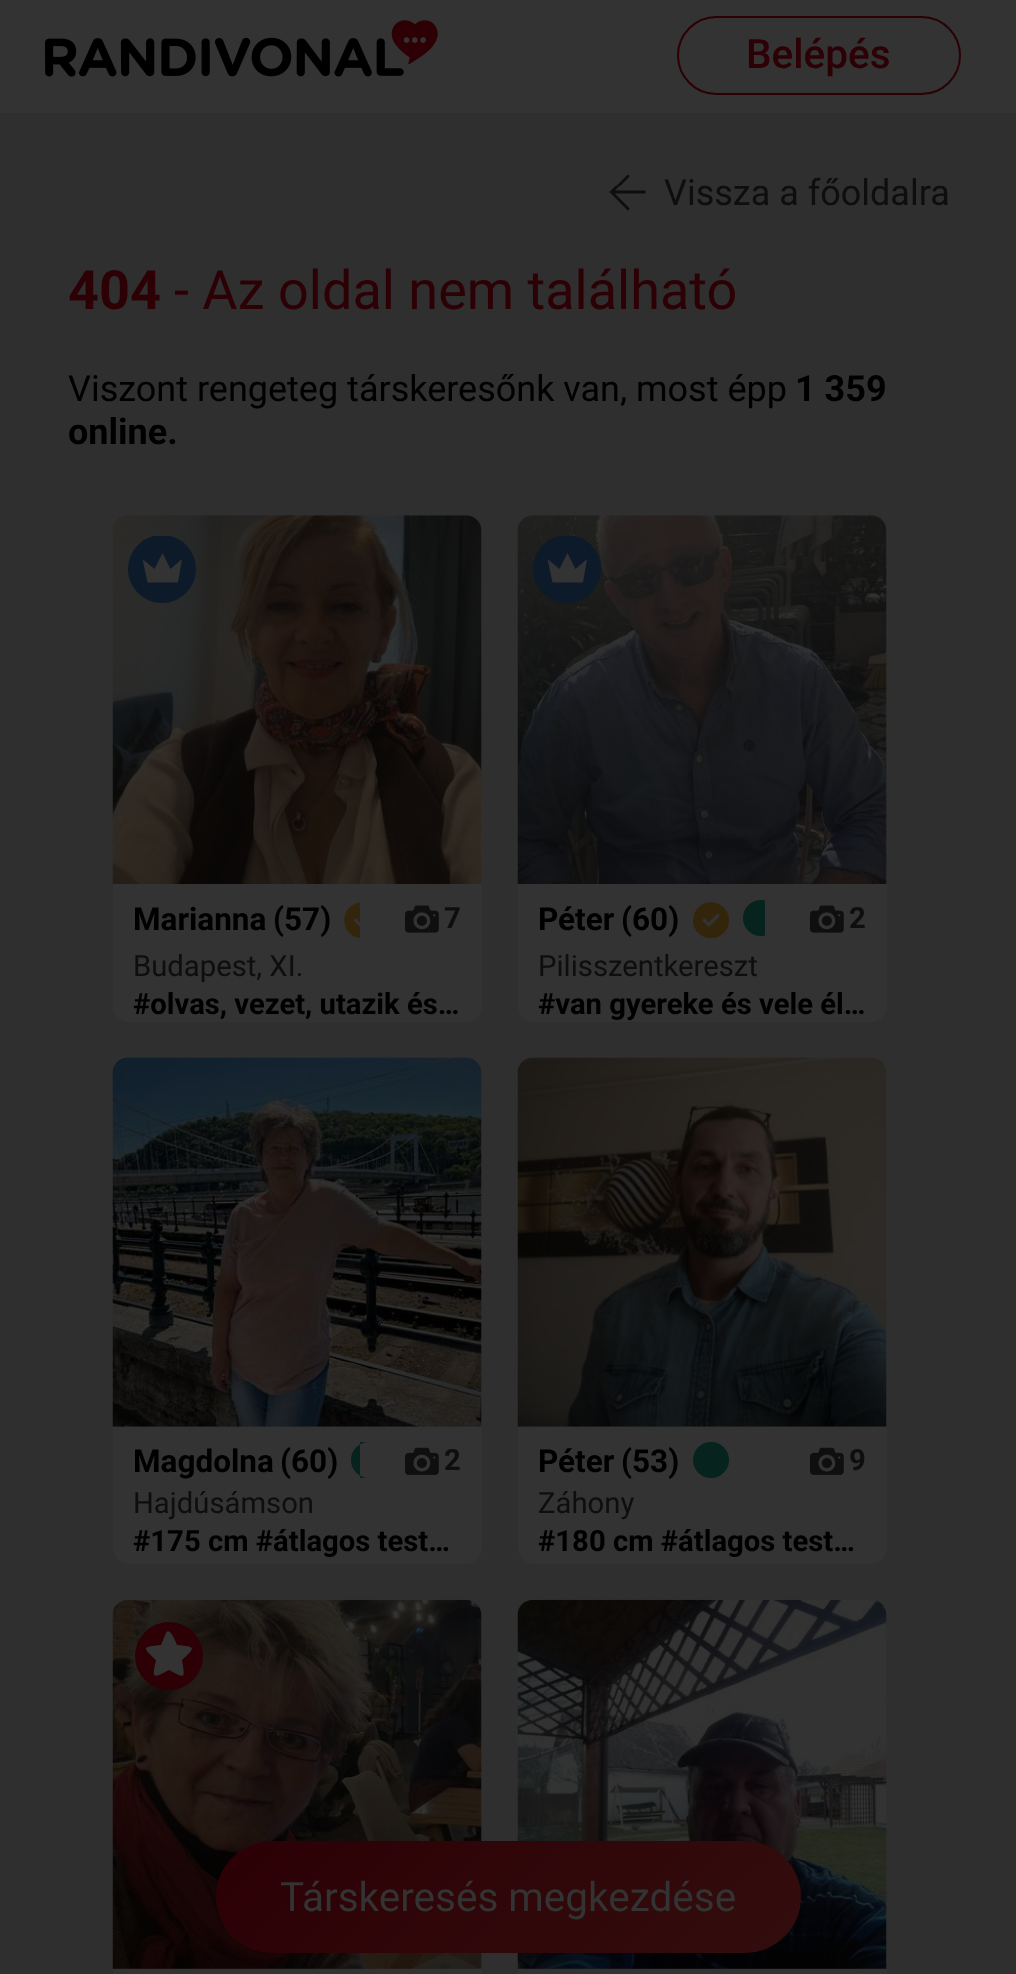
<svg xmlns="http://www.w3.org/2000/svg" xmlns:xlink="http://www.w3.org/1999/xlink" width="1016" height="1974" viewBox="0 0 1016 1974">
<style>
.cls-1{font:500 40.5px Roboto;fill:#2c0005}
.cls-2{font:40.5px Roboto;fill:#333333}
.cls-3{font:36px Roboto;fill:#0e0e0e}
.cls-4{font:bold 54px Roboto;fill:#2c0005}
.cls-5{font:54px Roboto;fill:#2c0005}
.cls-6{font:36px Roboto;fill:#000000}
.cls-7{font:bold 36px Roboto;fill:#000000}
.cls-8{font:bold 31.5px Roboto;fill:#000000}
.cls-9{font:bold 29.25px Roboto;fill:#0e0e0e}
.cls-10{font:bold 29.25px Roboto;fill:#000000}
.cls-11{font:29.25px Roboto;fill:#0e0e0e}
</style>
<defs>
<linearGradient id="g1" gradientUnits="userSpaceOnUse" x1="334" y1="1722" x2="683" y2="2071"><stop offset="0" stop-color="#2c0005"/><stop offset="1" stop-color="#330d0d"/></linearGradient>
<clipPath id="clip1"><rect x="128" y="536" width="68" height="67"/></clipPath>
<clipPath id="clip2"><rect x="533" y="536" width="68" height="67"/></clipPath>
<clipPath id="clip3"><rect x="538" y="889" width="227" height="56"/></clipPath>
</defs>
<rect width="100%" height="100%" fill="#2f2f2f"/>
<rect fill="#333333" x="0" y="0" width="1016" height="113"/>
<image xlink:href="image0.png" x="45" y="20" width="393" height="57"/>
<rect fill="none" stroke="#2c0005" stroke-width="2" x="678" y="17" width="282" height="77" rx="38.5"/>
<image xlink:href="image10.png" x="112" y="1599" width="370" height="370"/>
<image xlink:href="image11.png" x="517" y="1599" width="370" height="370"/>
<rect fill="url(#g1)" x="216" y="1841" width="585" height="112" rx="56"/>
<image xlink:href="image1.png" x="609" y="174" width="37" height="37"/>
<image xlink:href="image2.png" x="112" y="515" width="370" height="370"/>
<g clip-path="url(#clip1)">
<circle fill="#0d1a29" cx="162" cy="569" r="34"/>
</g>
<path fill="#333333" d="M142.5 559L147.5 582.5H178L182 559L170.5 569L162.5 553L154.5 569Z"/>
<path fill="#333333" d="M113 884H482V1006C482 1015 475 1022 466 1022H129C120 1022 113 1015 113 1006Z"/>
<image xlink:href="image3.png" x="344" y="902" width="16" height="36"/>
<image xlink:href="image4.png" x="405" y="905" width="34" height="28"/>
<image xlink:href="image5.png" x="517" y="515" width="370" height="370"/>
<g clip-path="url(#clip2)">
<circle fill="#0d1a29" cx="567" cy="569" r="34"/>
</g>
<path fill="#333333" d="M547.5 559L552.5 582.5H583L587 559L575.5 569L567.5 553L559.5 569Z"/>
<path fill="#333333" d="M518 884H887V1006C887 1015 880 1022 871 1022H534C525 1022 518 1015 518 1006Z"/>
<image xlink:href="image6.png" x="693" y="902" width="36" height="36"/>
<g clip-path="url(#clip3)">
<circle fill="#06231d" cx="761" cy="918" r="18"/>
</g>
<image xlink:href="image4.png" x="810" y="905" width="34" height="28"/>
<image xlink:href="image7.png" x="112" y="1057" width="370" height="370"/>
<path fill="#333333" d="M113 1427H482V1548C482 1557 475 1564 466 1564H129C120 1564 113 1557 113 1548Z"/>
<path fill="#06231d" d="M369 1442H360V1478H369C359 1478 351 1470 351 1460C351 1450 359 1442 369 1442Z"/>
<image xlink:href="image8.png" x="405" y="1447" width="34" height="28"/>
<image xlink:href="image9.png" x="517" y="1057" width="370" height="370"/>
<path fill="#333333" d="M518 1427H887V1548C887 1557 880 1564 871 1564H534C525 1564 518 1557 518 1548Z"/>
<circle fill="#06231d" cx="711" cy="1460" r="18"/>
<image xlink:href="image8.png" x="810" y="1447" width="34" height="28"/>
<circle fill="#2c0005" cx="169" cy="1656" r="34"/>
<path fill="#333333" d="M166 1633L161 1645C142 1647 142 1647 156 1660C152 1679 152 1679 169 1670C186 1679 185 1679 182 1660C196 1647 196 1647 177 1645C176 1643 170 1626 166 1633Z"/>
<rect fill="#333333" x="113" y="1969" width="369" height="5"/>
<rect fill="#333333" x="518" y="1969" width="369" height="5"/>
<text class="cls-1" x="746" y="68">Belépés</text>
<text class="cls-2" x="280" y="1911">Társkeresés megkezdése</text>
<text class="cls-3" x="664" y="205">Vissza a főoldalra</text>
<text class="cls-4" x="68" y="309">404</text>
<text class="cls-5" x="174" y="309">- Az oldal nem található</text>
<text class="cls-6" x="68" y="401">Viszont rengeteg társkeresőnk van, most épp</text>
<text class="cls-7" x="795" y="401">1 359</text>
<text class="cls-7" x="68" y="444">online.</text>
<text class="cls-8" x="133" y="930">Marianna</text>
<text class="cls-8" x="273" y="930">(57)</text>
<text class="cls-9" x="444" y="928">7</text>
<text class="cls-10" x="133" y="1014">#olvas, vezet, utazik és…</text>
<text class="cls-11" x="133" y="976">Budapest, XI.</text>
<text class="cls-8" x="538" y="930">Péter</text>
<text class="cls-8" x="621" y="930">(60)</text>
<text class="cls-9" x="849" y="928">2</text>
<text class="cls-10" x="538" y="1014">#van gyereke és vele él…</text>
<text class="cls-11" x="538" y="976">Pilisszentkereszt</text>
<text class="cls-8" x="133" y="1472">Magdolna</text>
<text class="cls-8" x="280" y="1472">(60)</text>
<text class="cls-9" x="444" y="1470">2</text>
<text class="cls-10" x="133" y="1551">#175 cm #átlagos test…</text>
<text class="cls-11" x="133" y="1513">Hajdúsámson</text>
<text class="cls-8" x="538" y="1472">Péter</text>
<text class="cls-8" x="621" y="1472">(53)</text>
<text class="cls-9" x="849" y="1470">9</text>
<text class="cls-10" x="538" y="1551">#180 cm #átlagos test…</text>
<text class="cls-11" x="538" y="1513">Záhony</text>
</svg>
